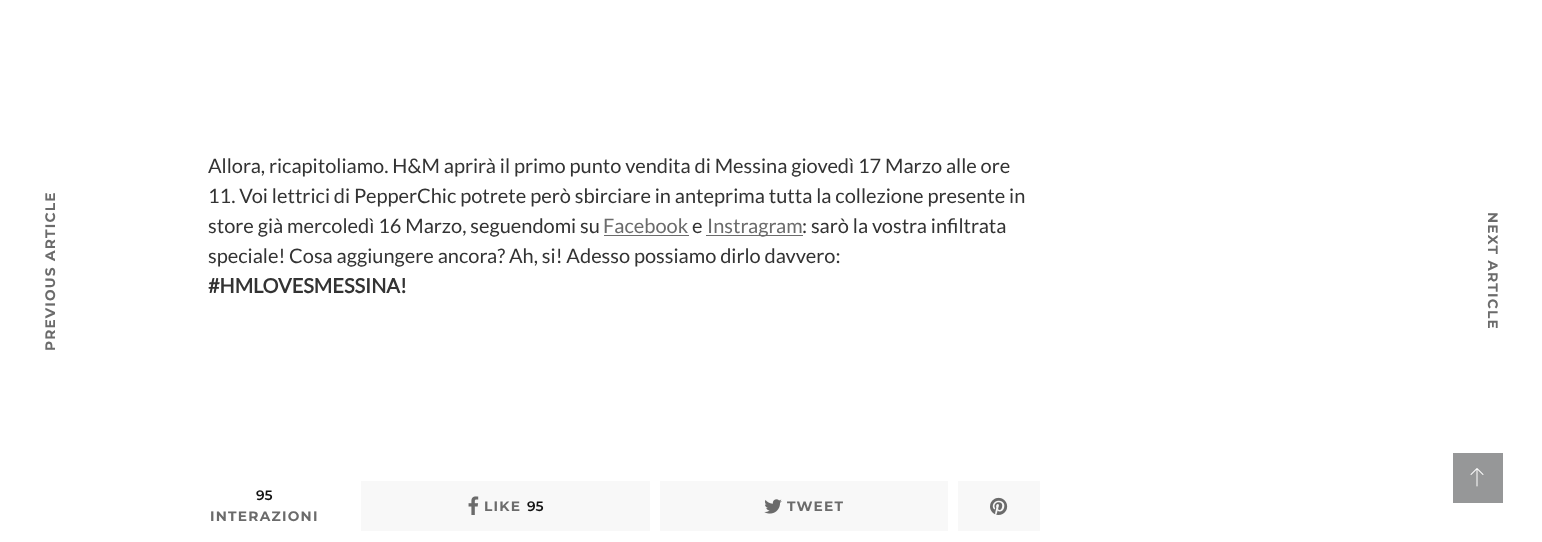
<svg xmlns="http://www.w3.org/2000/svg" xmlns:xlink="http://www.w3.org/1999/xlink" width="1542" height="542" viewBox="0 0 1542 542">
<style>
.cls-1{font:20px Lato;fill:#333333}
.cls-2{font:20px Lato;fill:#6b6b6b}
.cls-3{font:bold 20px Lato;fill:#333333}
.cls-4{font:600 13.75px Montserrat;fill:#111111}
.cls-5{font:bold 13.75px Montserrat;letter-spacing:1.25px;fill:#6b6b6b}
</style>
<rect width="100%" height="100%" fill="#ffffff"/>
<rect fill="#6b6b6b" x="604" y="235" width="85" height="1"/>
<rect fill="#6b6b6b" x="706" y="235" width="97" height="1"/>
<rect fill="#f8f8f8" x="361" y="481" width="289" height="50"/>
<image xlink:href="image0.png" x="468" y="496" width="11" height="19"/>
<rect fill="#f8f8f8" x="660" y="481" width="288" height="50"/>
<image xlink:href="image1.png" x="764" y="499" width="18" height="15"/>
<rect fill="#f8f8f8" x="958" y="481" width="82" height="50"/>
<image xlink:href="image2.png" x="990" y="497" width="18" height="18"/>
<rect fill="#969798" x="1453" y="453" width="50" height="50"/>
<image xlink:href="image3.png" x="1470" y="468" width="14" height="19"/>
<text class="cls-1"><tspan x="208" y="173">Allora, ricapitoliamo. H&amp;M aprirà il primo punto vendita di Messina giovedì 17 Marzo alle ore</tspan><tspan x="208" y="203">11. Voi lettrici di PepperChic potrete però sbirciare in anteprima tutta la collezione presente in</tspan><tspan x="208" y="233">store già mercoledì 16 Marzo, seguendomi su</tspan></text>
<text class="cls-2" x="603" y="233">Facebook</text>
<text class="cls-1" x="692" y="233">e</text>
<text class="cls-2" x="707" y="233">Instragram</text>
<text class="cls-1" x="802" y="233">: sarò la vostra infiltrata</text>
<text class="cls-1" x="208" y="263">speciale! Cosa aggiungere ancora? Ah, si! Adesso possiamo dirlo davvero:</text>
<text class="cls-3" x="208" y="293">#HMLOVESMESSINA!</text>
<text class="cls-4" x="256" y="500">95</text>
<text class="cls-5" x="210" y="521">INTERAZIONI</text>
<text class="cls-5" x="484" y="511">LIKE</text>
<text class="cls-4" x="527" y="511">95</text>
<text class="cls-5" x="787" y="511">TWEET</text>
<text class="cls-5" x="55" y="351" transform="rotate(-90 55 351)">PREVIOUS ARTICLE</text>
<text class="cls-5" x="1488" y="212" transform="rotate(90 1488 212)">NEXT ARTICLE</text>
</svg>
